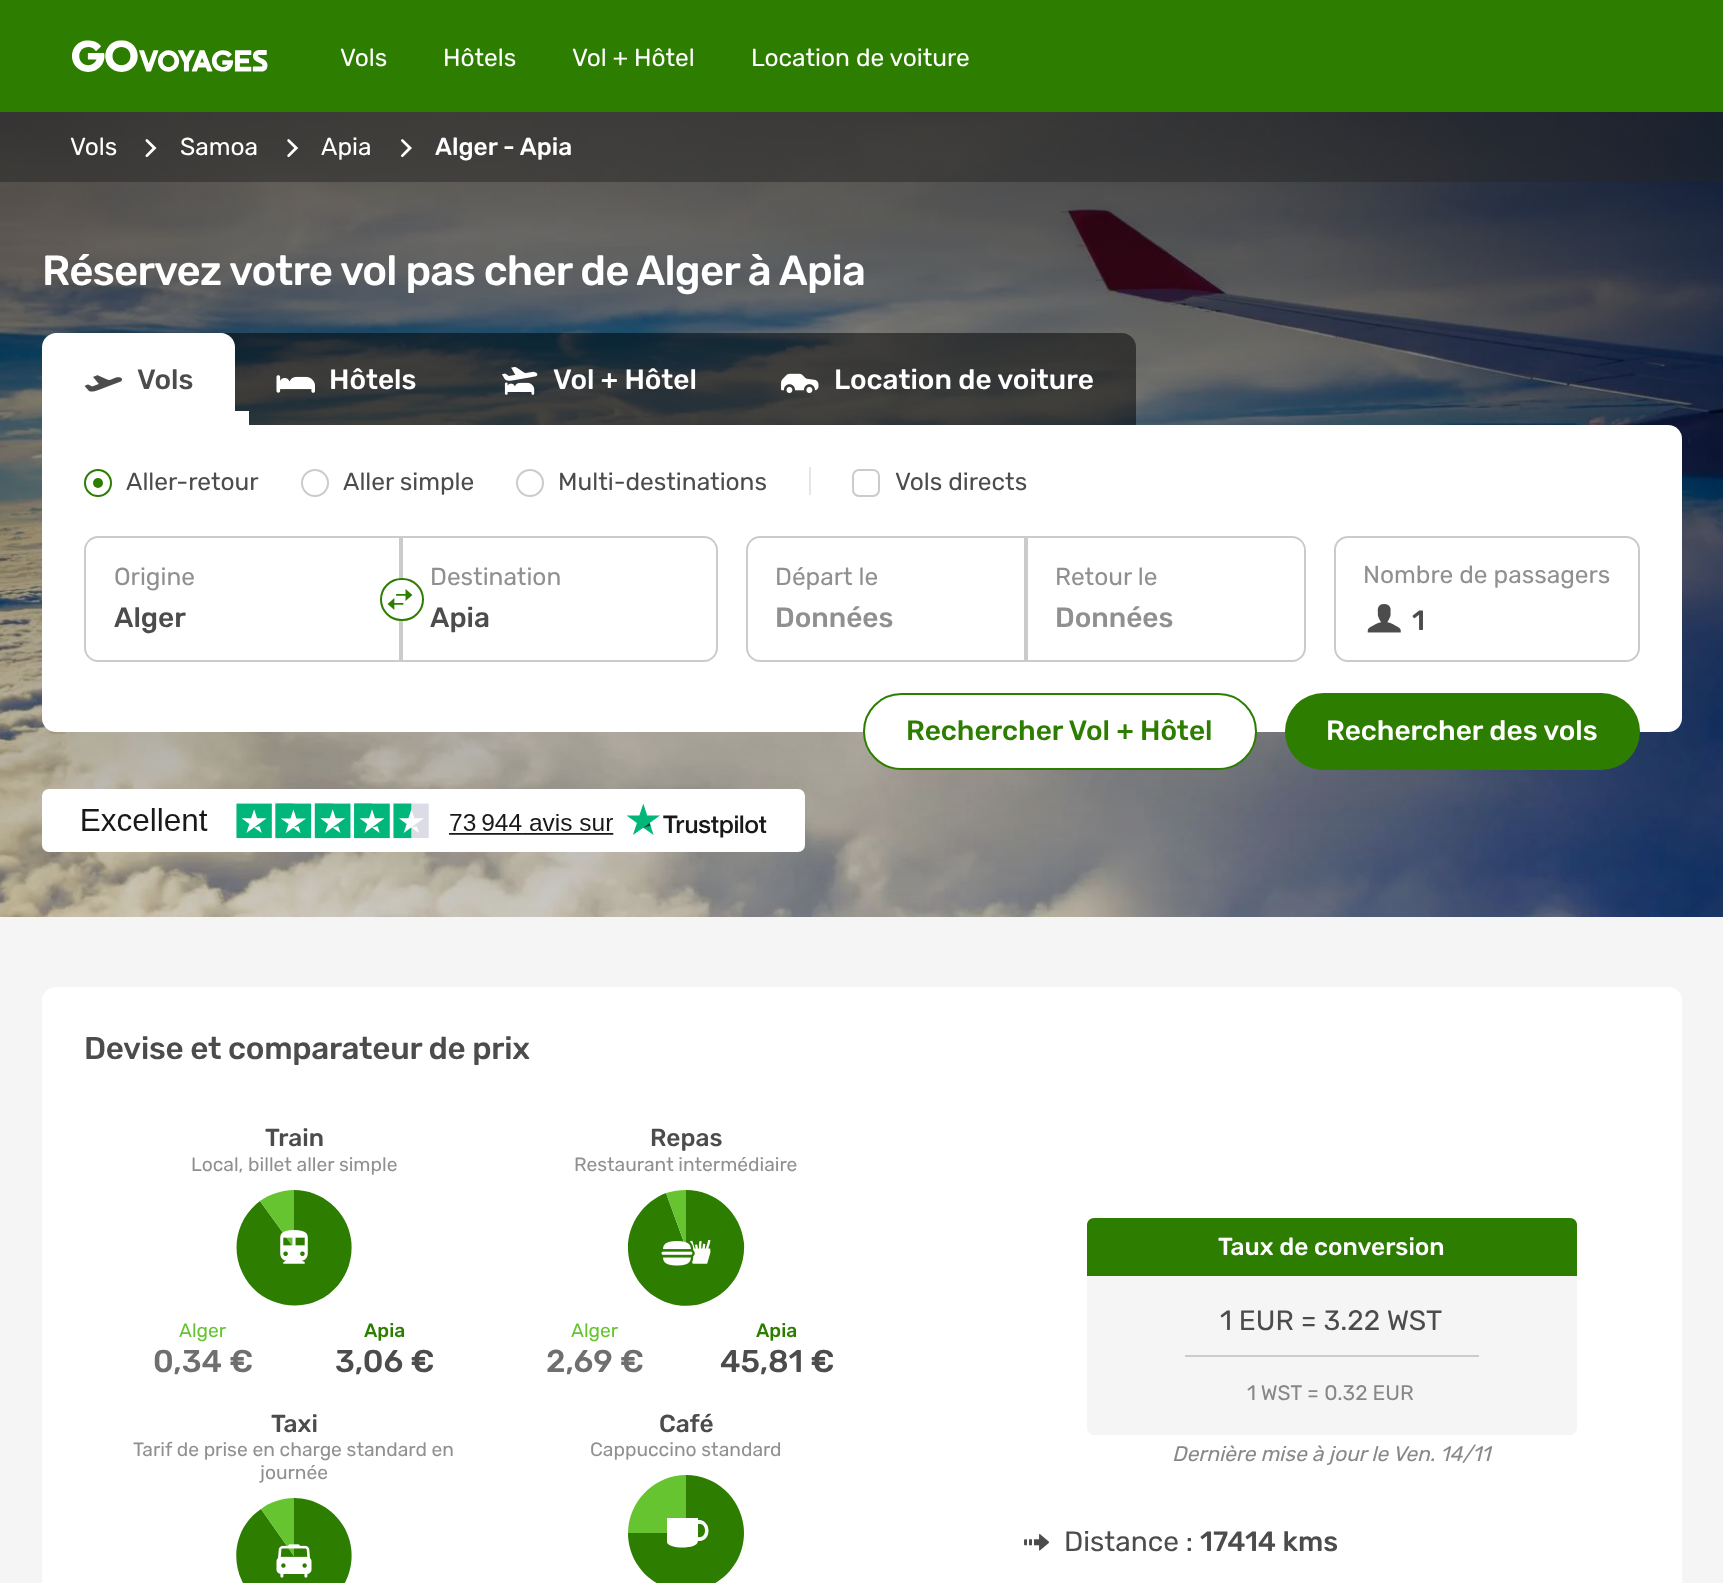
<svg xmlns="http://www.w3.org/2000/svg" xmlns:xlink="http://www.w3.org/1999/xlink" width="1723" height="1583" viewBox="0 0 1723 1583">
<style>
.cls-1{font:24.5px Rubik;fill:#ffffff}
.cls-2{font:500 24.5px Rubik;fill:#ffffff}
.cls-3{font:500 42px Rubik;letter-spacing:-0.85px;fill:#ffffff}
.cls-4{font:500 28px Rubik;fill:#4c4c4c}
.cls-5{font:500 28px Rubik;fill:#ffffff}
.cls-6{font:24.5px Rubik;fill:#4c4c4c}
.cls-7{font:24.5px Rubik;fill:#909090}
.cls-8{font:500 28px Rubik;fill:#909090}
.cls-9{font:500 28px Rubik;fill:#2d7d00}
.cls-10{font:500 31.5px Rubik;letter-spacing:-0.3px;fill:#4c4c4c}
.cls-11{font:500 24.5px Rubik;fill:#4c4c4c}
.cls-12{font:19.25px Rubik;fill:#909090}
.cls-13{font:19.25px Rubik;fill:#66c431}
.cls-14{font:500 31.5px Rubik;fill:#6f6f6f}
.cls-15{font:500 19.25px Rubik;fill:#2d7d00}
.cls-16{font:500 31.5px Rubik;fill:#4c4c4c}
.cls-17{font:28px Rubik;fill:#4c4c4c}
.cls-18{font:21px Rubik;fill:#888888}
.cls-19{font:italic 21px Rubik;fill:#888888}
</style>
<rect width="100%" height="100%" fill="#f5f5f5"/>
<rect fill="#2d7d00" x="0" y="0" width="1723" height="112"/>
<image xlink:href="image0.png" x="72" y="40" width="196" height="32"/>
<image xlink:href="image1.png" x="0" y="112" width="1723" height="805"/>
<rect fill="#262626" fill-opacity="0.5" x="0" y="112" width="1723" height="70"/>
<image xlink:href="image2.png" x="145" y="139" width="12" height="19"/>
<image xlink:href="image3.png" x="287" y="139" width="12" height="19"/>
<image xlink:href="image4.png" x="401" y="139" width="11" height="19"/>
<path fill="#000000" fill-opacity="0.5" d="M56 333H1122C1129.5 333 1136 339.5 1136 347V439H42V347C42 339.5 48.5 333 56 333Z"/>
<path fill="#ffffff" d="M56 333H221C228.5 333 235 339.5 235 347V439H42V347C42 339.5 48.5 333 56 333Z"/>
<image xlink:href="image5.png" x="84" y="375" width="38" height="17"/>
<rect fill="#ffffff" x="235" y="411" width="14" height="14"/>
<image xlink:href="image6.png" x="276" y="375" width="39" height="18"/>
<image xlink:href="image7.png" x="502" y="367" width="36" height="28"/>
<image xlink:href="image8.png" x="781" y="373" width="38" height="21"/>
<rect fill="#ffffff" x="42" y="425" width="1640" height="307" rx="14"/>
<circle fill="none" stroke="#2d7d00" stroke-width="2" cx="98" cy="483" r="13"/>
<circle fill="#2d7d00" cx="98" cy="483" r="5"/>
<circle fill="none" stroke="#cbcbcb" stroke-width="2" cx="315" cy="483" r="13"/>
<circle fill="none" stroke="#cbcbcb" stroke-width="2" cx="530" cy="483" r="13"/>
<rect fill="#e6e6e6" x="809" y="467" width="2" height="28"/>
<rect fill="none" stroke="#cbcbcb" stroke-width="2" x="853" y="470" width="26" height="26" rx="6"/>
<path fill="none" stroke="#cbcbcb" stroke-width="2" d="M98 537H400V661H98C91 661 85 655 85 648V550C85 543 91 537 98 537Z"/>
<path fill="none" stroke="#cbcbcb" stroke-width="2" d="M402 537H704C711 537 717 543 717 550V648C717 655 711 661 704 661H402Z"/>
<rect fill="#ffffff" stroke="#2d7d00" stroke-width="2" x="381" y="579" width="42" height="41" rx="20.5"/>
<image xlink:href="image9.png" x="387" y="589" width="26" height="21"/>
<path fill="none" stroke="#cbcbcb" stroke-width="2" d="M760 537H1025V661H760C753 661 747 655 747 648V550C747 543 753 537 760 537Z"/>
<path fill="none" stroke="#cbcbcb" stroke-width="2" d="M1027 537H1292C1299 537 1305 543 1305 550V648C1305 655 1299 661 1292 661H1027Z"/>
<rect fill="none" stroke="#cbcbcb" stroke-width="2" x="1335" y="537" width="304" height="124" rx="13"/>
<image xlink:href="image10.png" x="1367" y="604" width="34" height="29"/>
<rect fill="#ffffff" stroke="#2d7d00" stroke-width="2" x="864" y="694" width="392" height="75" rx="37.5"/>
<rect fill="#2d7d00" x="1285" y="693" width="355" height="77" rx="38.5"/>
<rect fill="#ffffff" x="42" y="789" width="763" height="63" rx="7"/>
<image xlink:href="image11.png" x="82" y="803" width="685" height="36"/>
<rect fill="#ffffff" x="42" y="987" width="1640" height="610" rx="14"/>
<path fill="#2d7d00" d="M294 1248V1190C322 1190 347 1211 351 1239C355 1267 339 1294 312 1303C285 1311 255 1299 243 1274C230 1249 237 1218 260 1201Z"/>
<path fill="#66c431" d="M294 1248L260 1201C270 1194 282 1190 294 1190Z"/>
<image xlink:href="image12.png" x="280" y="1230" width="28" height="34"/>
<path fill="#2d7d00" d="M686 1248V1190C716 1190 741 1213 744 1243C746 1273 726 1299 696 1305C667 1310 638 1292 630 1263C622 1234 638 1204 666 1193Z"/>
<path fill="#66c431" d="M686 1248L666 1193C673 1191 679 1190 686 1190Z"/>
<image xlink:href="image13.png" x="661" y="1239" width="50" height="27"/>
<path fill="#2d7d00" d="M294 1556V1498C322 1498 347 1519 351 1547C355 1575 339 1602 312 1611C284 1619 255 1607 242 1581C230 1556 237 1525 261 1509Z"/>
<path fill="#66c431" d="M294 1556L261 1509C270 1502 282 1498 294 1498Z"/>
<image xlink:href="image14.png" x="276" y="1544" width="36" height="34"/>
<path fill="#2d7d00" d="M686 1533V1475C718 1475 744 1501 744 1533C744 1565 718 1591 686 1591C654 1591 628 1565 628 1533Z"/>
<path fill="#66c431" d="M686 1533H628C628 1502 654 1475 686 1475Z"/>
<path fill="#ffffff" d="M698 1520C712 1519 712 1543 698 1541C698 1550 667 1549 667 1542V1518H698ZM700 1524H698V1537C707 1539 707 1524 700 1524Z"/>
<path fill="#2d7d00" d="M1094 1218H1570C1574 1218 1577 1221 1577 1225V1276H1087V1225C1087 1221 1090 1218 1094 1218Z"/>
<path fill="#f5f5f5" d="M1087 1276H1577V1428C1577 1432 1574 1435 1570 1435H1094C1090 1435 1087 1432 1087 1428Z"/>
<rect fill="#cccccc" x="1185" y="1355" width="294" height="2"/>
<image xlink:href="image15.png" x="1024" y="1534" width="25" height="17"/>
<text class="cls-1" x="340" y="66">Vols</text>
<text class="cls-1" x="443" y="66">Hôtels</text>
<text class="cls-1" x="572" y="66">Vol + Hôtel</text>
<text class="cls-1" x="751" y="66">Location de voiture</text>
<text class="cls-1" x="70" y="155">Vols</text>
<text class="cls-1" x="180" y="155">Samoa</text>
<text class="cls-1" x="321" y="155">Apia</text>
<text class="cls-2" x="435" y="155">Alger - Apia</text>
<text class="cls-3" x="42" y="285">Réservez votre vol pas cher de Alger à Apia</text>
<text class="cls-4" x="137" y="389">Vols</text>
<text class="cls-5" x="329" y="389">Hôtels</text>
<text class="cls-5" x="553" y="389">Vol + Hôtel</text>
<text class="cls-5" x="834" y="389">Location de voiture</text>
<text class="cls-6" x="126" y="490">Aller-retour</text>
<text class="cls-6" x="343" y="490">Aller simple</text>
<text class="cls-6" x="558" y="490">Multi-destinations</text>
<text class="cls-6" x="895" y="490">Vols directs</text>
<text class="cls-7" x="114" y="585">Origine</text>
<text class="cls-4" x="114" y="627">Alger</text>
<text class="cls-7" x="430" y="585">Destination</text>
<text class="cls-4" x="430" y="627">Apia</text>
<text class="cls-7" x="775" y="585">Départ le</text>
<text class="cls-8" x="775" y="627">Données</text>
<text class="cls-7" x="1055" y="585">Retour le</text>
<text class="cls-8" x="1055" y="627">Données</text>
<text class="cls-7" x="1363" y="583">Nombre de passagers</text>
<text class="cls-4" x="1412" y="630">1</text>
<text class="cls-9" x="906" y="740">Rechercher Vol + Hôtel</text>
<text class="cls-5" x="1326" y="740">Rechercher des vols</text>
<text class="cls-10" x="84" y="1059">Devise et comparateur de prix</text>
<text class="cls-11" x="265" y="1146">Train</text>
<text class="cls-12" x="191" y="1171">Local, billet aller simple</text>
<text class="cls-13" x="179" y="1337">Alger</text>
<text class="cls-14" x="153" y="1372">0,34 €</text>
<text class="cls-15" x="364" y="1337">Apia</text>
<text class="cls-16" x="335" y="1372">3,06 €</text>
<text class="cls-11" x="650" y="1146">Repas</text>
<text class="cls-12" x="574" y="1171">Restaurant intermédiaire</text>
<text class="cls-13" x="571" y="1337">Alger</text>
<text class="cls-14" x="546" y="1372">2,69 €</text>
<text class="cls-15" x="756" y="1337">Apia</text>
<text class="cls-16" x="720" y="1372">45,81 €</text>
<text class="cls-11" x="271" y="1432">Taxi</text>
<text class="cls-12" x="133" y="1456">Tarif de prise en charge standard en</text>
<text class="cls-12" x="260" y="1479">journée</text>
<text class="cls-11" x="659" y="1432">Café</text>
<text class="cls-12" x="590" y="1456">Cappuccino standard</text>
<text class="cls-2" x="1218" y="1255">Taux de conversion</text>
<text class="cls-17" x="1220" y="1330">1 EUR = 3.22 WST</text>
<text class="cls-18" x="1247" y="1400">1 WST = 0.32 EUR</text>
<text class="cls-19" x="1172" y="1461">Dernière mise à jour le Ven. 14/11</text>
<text class="cls-17" x="1064" y="1551">Distance :</text>
<text class="cls-4" x="1200" y="1551">17414 kms</text>
</svg>
